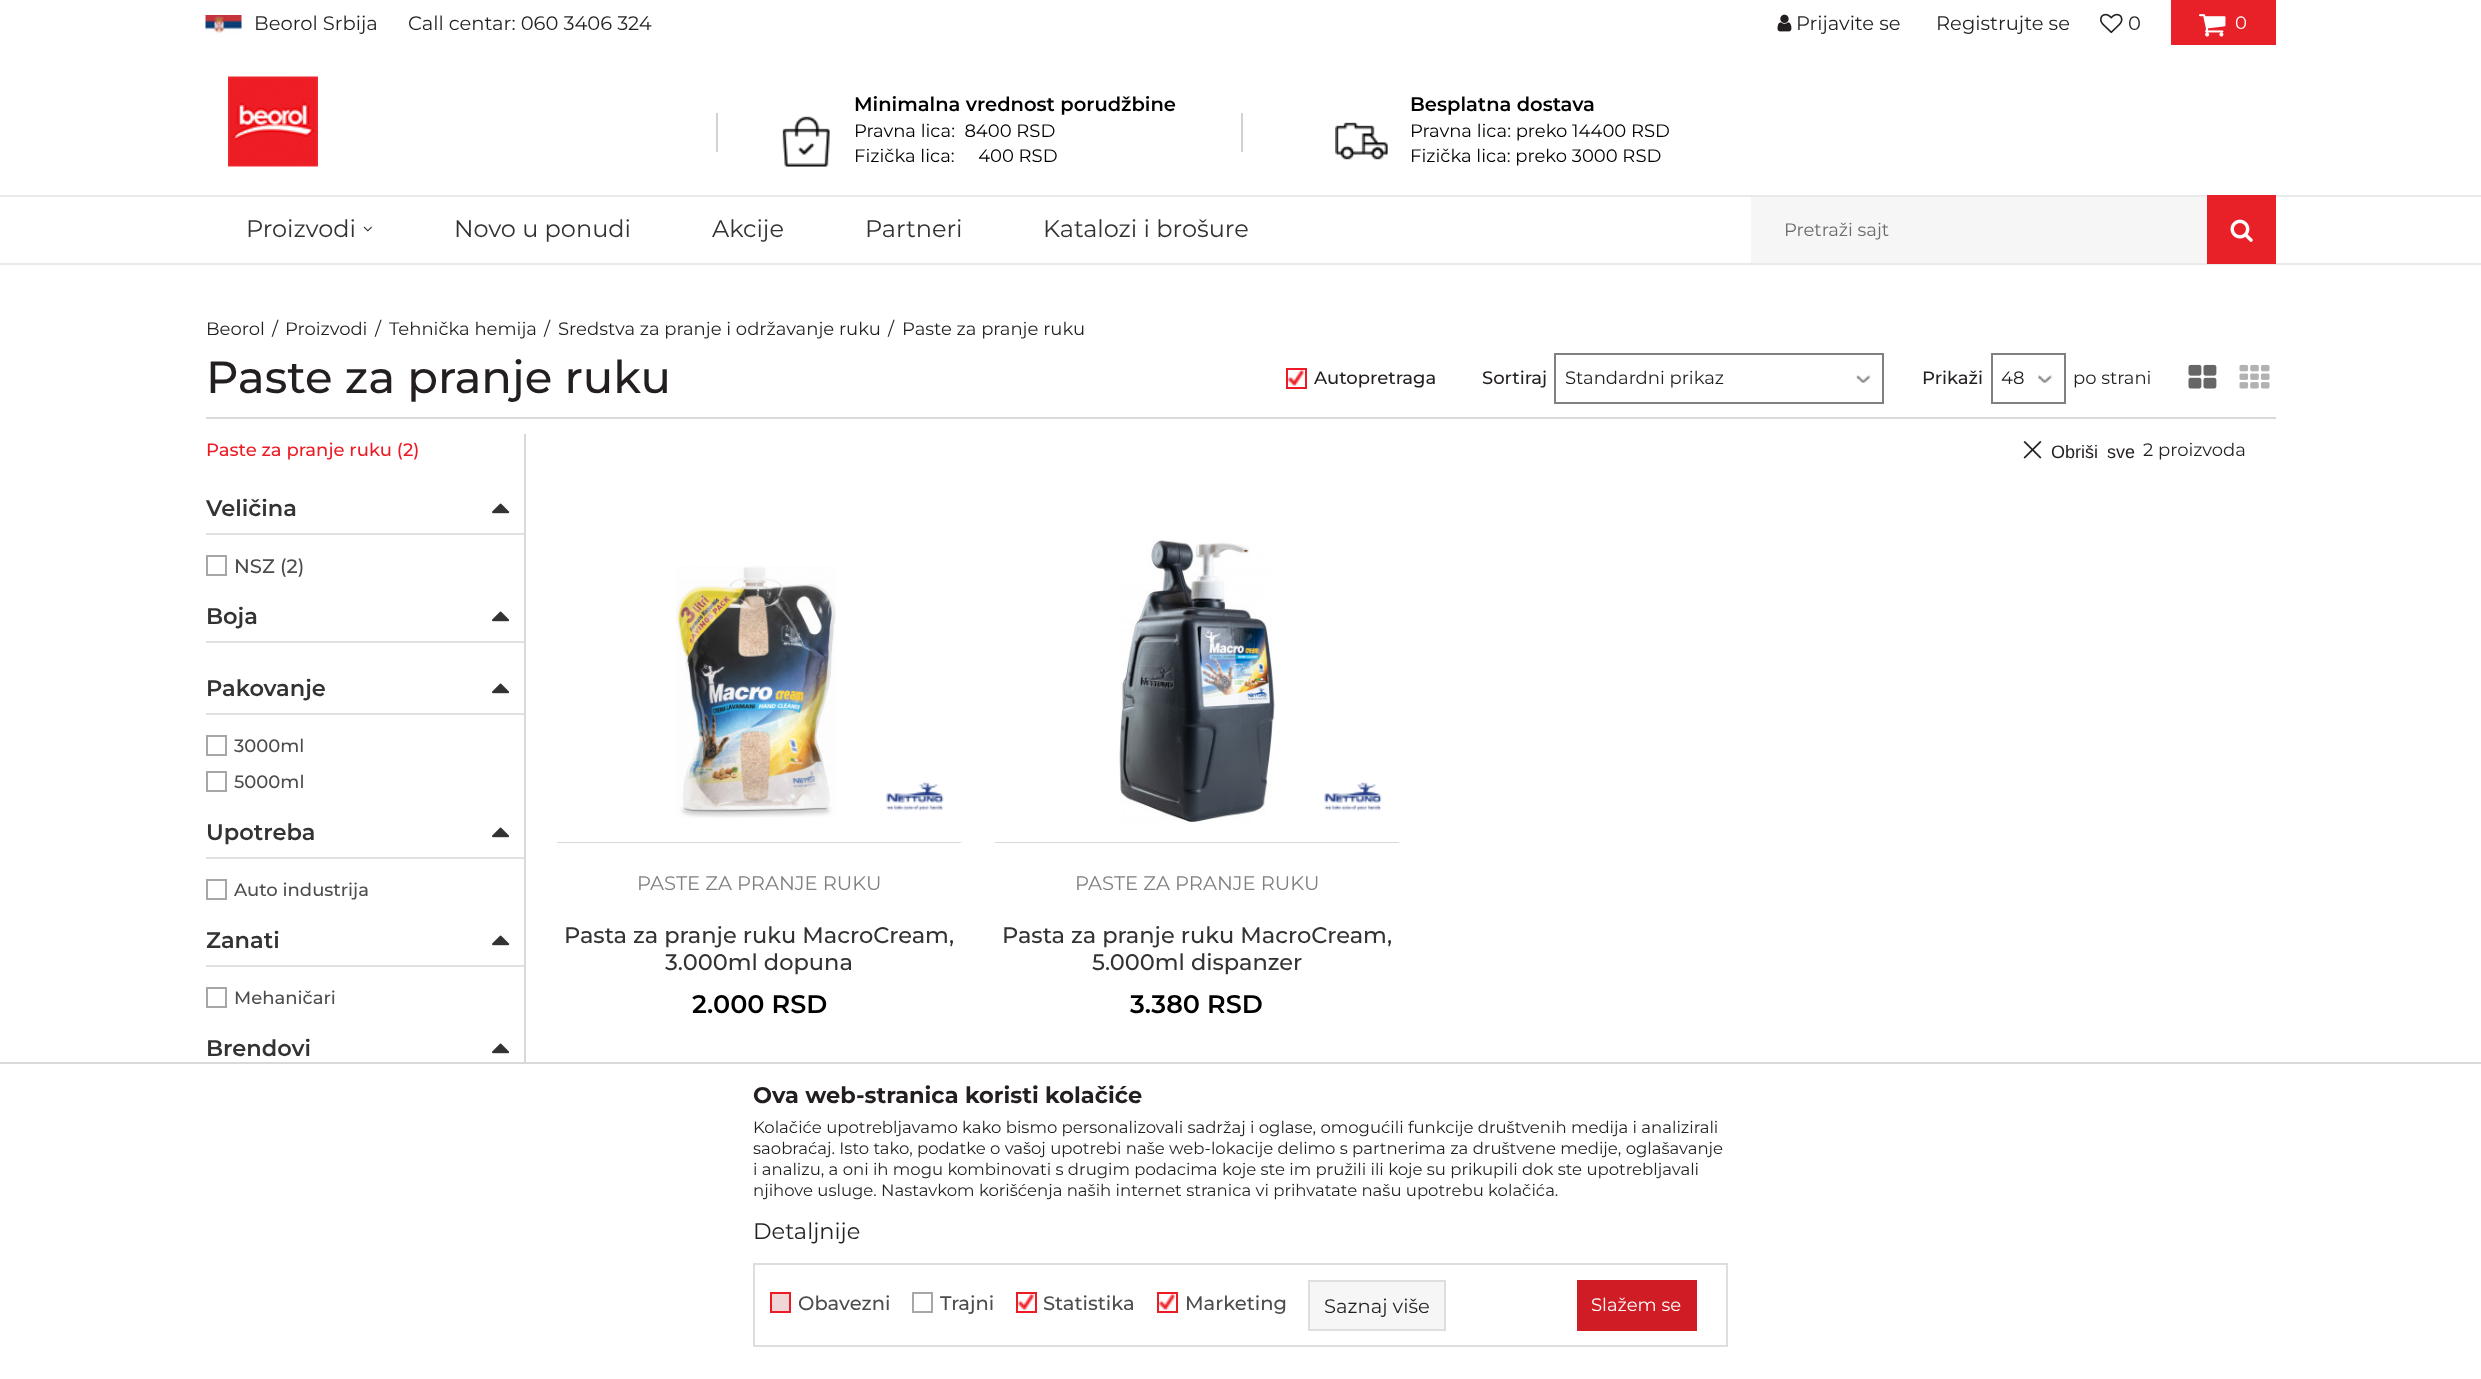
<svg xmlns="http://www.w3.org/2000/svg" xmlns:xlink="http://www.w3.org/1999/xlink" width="2481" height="1379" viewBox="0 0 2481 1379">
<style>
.cls-1{font:19.5px Montserrat;fill:#231f20}
.cls-2{font:18px Montserrat;fill:#ffffff}
.cls-3{font:600 19.5px Montserrat;fill:#000000}
.cls-4{font:18px Montserrat;fill:#000000}
.cls-5{font:24px Montserrat;fill:#333333}
.cls-6{font:18px Montserrat;fill:#6b6b6b}
.cls-7{font:18px Montserrat;fill:#231f20}
.cls-8{font:500 45px Montserrat;fill:#231f20}
.cls-9{font:500 18px Montserrat;fill:#231f20}
.cls-10{font:500 18px Montserrat;fill:#ed1c24}
.cls-11{font:600 22.5px Montserrat;fill:#333333}
.cls-12{font:500 19.5px Montserrat;fill:#4d4d4d}
.cls-13{font:500 18px Montserrat;fill:#4d4d4d}
.cls-14{font:18px Liberation Sans;fill:#231f20}
.cls-15{font:19.5px Montserrat;fill:#808080}
.cls-16{font:500 22.5px Montserrat;fill:#333333}
.cls-17{font:600 25.5px Montserrat;fill:#000000}
.cls-18{font:bold 22.5px Montserrat;fill:#231f20}
.cls-19{font:16.5px Montserrat;fill:#231f20}
.cls-20{font:22.5px Montserrat;fill:#231f20}
</style>
<rect width="100%" height="100%" fill="#ffffff"/>
<image xlink:href="image0.png" x="205" y="15" width="37" height="19"/>
<image xlink:href="image1.png" x="1777" y="14" width="15" height="18"/>
<image xlink:href="image2.png" x="2100" y="13" width="23" height="21"/>
<rect fill="#e82128" x="2171" y="0" width="105" height="45"/>
<image xlink:href="image3.png" x="2199" y="14" width="27" height="23"/>
<image xlink:href="image4.png" x="228" y="76" width="90" height="91"/>
<rect fill="#d2d2d2" x="716" y="113" width="2" height="39"/>
<image xlink:href="image5.png" x="782" y="116" width="48" height="51"/>
<rect fill="#d2d2d2" x="1241" y="113" width="2" height="39"/>
<image xlink:href="image6.png" x="1335" y="122" width="53" height="38"/>
<rect fill="#eaeaea" x="0" y="195" width="2481" height="2"/>
<rect fill="#eaeaea" x="0" y="263" width="2481" height="2"/>
<image xlink:href="image7.png" x="363" y="226" width="9" height="6"/>
<rect fill="#f6f6f6" x="1751" y="197" width="456" height="66"/>
<rect fill="#e82128" x="2207" y="195" width="69" height="69"/>
<image xlink:href="image8.png" x="2230" y="219" width="23" height="23"/>
<rect fill="#d9d9d9" x="206" y="417" width="2070" height="2"/>
<image xlink:href="image9.png" x="1288" y="370" width="16" height="16"/>
<rect fill="none" stroke="#ed1c24" stroke-width="2" x="1287" y="369" width="19" height="19"/>
<image xlink:href="image10.png" x="1856" y="375" width="15" height="8"/>
<rect fill="none" stroke="#808080" stroke-width="2" x="1555" y="354" width="328" height="49"/>
<image xlink:href="image11.png" x="2038" y="374" width="15" height="9"/>
<rect fill="none" stroke="#808080" stroke-width="2" x="1992" y="354" width="73" height="49"/>
<image xlink:href="image12.png" x="2188" y="364" width="29" height="25"/>
<image xlink:href="image13.png" x="2239" y="364" width="31" height="25"/>
<rect fill="#d9d9d9" x="524" y="434" width="2" height="628"/>
<rect fill="#e1e1e1" x="206" y="533" width="318" height="2"/>
<image xlink:href="image14.png" x="492" y="503" width="18" height="11"/>
<rect fill="none" stroke="#a7a7a7" stroke-width="2" x="207" y="556" width="19" height="19"/>
<rect fill="#e1e1e1" x="206" y="641" width="318" height="2"/>
<image xlink:href="image14.png" x="492" y="611" width="18" height="11"/>
<rect fill="#e1e1e1" x="206" y="713" width="318" height="2"/>
<image xlink:href="image14.png" x="492" y="683" width="18" height="11"/>
<rect fill="none" stroke="#a7a7a7" stroke-width="2" x="207" y="736" width="19" height="19"/>
<rect fill="none" stroke="#a7a7a7" stroke-width="2" x="207" y="772" width="19" height="19"/>
<rect fill="#e1e1e1" x="206" y="857" width="318" height="2"/>
<image xlink:href="image14.png" x="492" y="827" width="18" height="11"/>
<rect fill="none" stroke="#a7a7a7" stroke-width="2" x="207" y="880" width="19" height="19"/>
<rect fill="#e1e1e1" x="206" y="965" width="318" height="2"/>
<image xlink:href="image14.png" x="492" y="935" width="18" height="11"/>
<rect fill="none" stroke="#a7a7a7" stroke-width="2" x="207" y="988" width="19" height="19"/>
<image xlink:href="image14.png" x="492" y="1043" width="18" height="11"/>
<image xlink:href="image15.png" x="2023" y="440" width="19" height="19"/>
<path fill="#d9d9d9" d="M962 843H556L558 842H960Z"/>
<image xlink:href="image16.png" x="676" y="566" width="160" height="252"/>
<image xlink:href="image17.png" x="886" y="782" width="58" height="29"/>
<path fill="#d9d9d9" d="M1400 843H994L996 842H1398Z"/>
<image xlink:href="image18.png" x="1119" y="538" width="156" height="286"/>
<image xlink:href="image19.png" x="1324" y="782" width="58" height="29"/>
<rect fill="none" stroke="#d9d9d9" stroke-width="2" x="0" y="1063" width="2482" height="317"/>
<rect fill="#ffffff" x="0" y="1064" width="1" height="315"/>
<rect fill="none" stroke="#dedede" stroke-width="2" x="754" y="1264" width="973" height="82"/>
<rect fill="#f0d6d6" stroke="#ed1c24" stroke-width="2" x="771" y="1293" width="19" height="19"/>
<rect fill="none" stroke="#a7a7a7" stroke-width="2" x="913" y="1293" width="19" height="19"/>
<image xlink:href="image20.png" x="1018" y="1294" width="16" height="16"/>
<rect fill="none" stroke="#ed1c24" stroke-width="2" x="1017" y="1293" width="19" height="19"/>
<image xlink:href="image20.png" x="1159" y="1294" width="16" height="16"/>
<rect fill="none" stroke="#ed1c24" stroke-width="2" x="1158" y="1293" width="19" height="19"/>
<rect fill="#f6f6f6" stroke="#dedede" stroke-width="2" x="1309" y="1281" width="136" height="49"/>
<rect fill="#d01c24" x="1577" y="1280" width="120" height="51"/>
<text class="cls-1" x="254" y="30">Beorol Srbija</text>
<text class="cls-1" x="408" y="30">Call centar: 060 3406 324</text>
<text class="cls-1" x="1796" y="30">Prijavite se</text>
<text class="cls-1" x="1936" y="30">Registrujte se</text>
<text class="cls-1" x="2128" y="30">0</text>
<text class="cls-2" x="2235" y="29">0</text>
<text class="cls-3" x="854" y="111">Minimalna vrednost porudžbine</text>
<text class="cls-4" xml:space="preserve"><tspan x="854" y="137">Pravna lica:  8400 RSD</tspan><tspan x="854" y="162">Fizička lica:     400 RSD</tspan></text>
<text class="cls-3" x="1410" y="111">Besplatna dostava</text>
<text class="cls-4"><tspan x="1410" y="137">Pravna lica: preko 14400 RSD</tspan><tspan x="1410" y="162">Fizička lica: preko 3000 RSD</tspan></text>
<text class="cls-5" x="246" y="237">Proizvodi</text>
<text class="cls-5" x="454" y="237">Novo u ponudi</text>
<text class="cls-5" x="712" y="237">Akcije</text>
<text class="cls-5" x="865" y="237">Partneri</text>
<text class="cls-5" x="1043" y="237">Katalozi i brošure</text>
<text class="cls-6" x="1784" y="236">Pretraži sajt</text>
<text class="cls-7" x="206" y="335">Beorol</text>
<text class="cls-7" x="272" y="335">/</text>
<text class="cls-7" x="285" y="335">Proizvodi</text>
<text class="cls-7" x="375" y="335">/</text>
<text class="cls-7" x="389" y="335">Tehnička hemija</text>
<text class="cls-7" x="544" y="335">/</text>
<text class="cls-7" x="558" y="335">Sredstva za pranje i održavanje ruku</text>
<text class="cls-7" x="888" y="335">/</text>
<text class="cls-7" x="902" y="335">Paste za pranje ruku</text>
<text class="cls-8" x="206" y="393">Paste za pranje ruku</text>
<text class="cls-9" x="1314" y="384">Autopretraga</text>
<text class="cls-9" x="1482" y="384">Sortiraj</text>
<text class="cls-7" x="1565" y="384">Standardni prikaz</text>
<text class="cls-9" x="1922" y="384">Prikaži</text>
<text class="cls-7" x="2001" y="384">48</text>
<text class="cls-7" x="2073" y="384">po strani</text>
<text class="cls-10" x="206" y="456">Paste za pranje ruku (2)</text>
<text class="cls-11" x="206" y="516">Veličina</text>
<text class="cls-12" x="234" y="573">NSZ (2)</text>
<text class="cls-11" x="206" y="624">Boja</text>
<text class="cls-11" x="206" y="696">Pakovanje</text>
<text class="cls-13" x="234" y="752">3000ml</text>
<text class="cls-13" x="234" y="788">5000ml</text>
<text class="cls-11" x="206" y="840">Upotreba</text>
<text class="cls-13" x="234" y="896">Auto industrija</text>
<text class="cls-11" x="206" y="948">Zanati</text>
<text class="cls-13" x="234" y="1004">Mehaničari</text>
<text class="cls-11" x="206" y="1056">Brendovi</text>
<text class="cls-14" x="2051" y="458" word-spacing="4">Obriši sve</text>
<text class="cls-7" x="2143" y="456">2 proizvoda</text>
<text class="cls-15" x="637" y="890">PASTE ZA PRANJE RUKU</text>
<text class="cls-16" x="564" y="943">Pasta za pranje ruku MacroCream,</text>
<text class="cls-16" x="665" y="970">3.000ml dopuna</text>
<text class="cls-17" x="692" y="1013">2.000 RSD</text>
<text class="cls-15" x="1075" y="890">PASTE ZA PRANJE RUKU</text>
<text class="cls-16" x="1002" y="943">Pasta za pranje ruku MacroCream,</text>
<text class="cls-16" x="1092" y="970">5.000ml dispanzer</text>
<text class="cls-17" x="1130" y="1013">3.380 RSD</text>
<text class="cls-18" x="753" y="1103">Ova web-stranica koristi kolačiće</text>
<text class="cls-19"><tspan x="753" y="1133">Kolačiće upotrebljavamo kako bismo personalizovali sadržaj i oglase, omogućili funkcije društvenih medija i analizirali</tspan><tspan x="753" y="1154">saobraćaj. Isto tako, podatke o vašoj upotrebi naše web-lokacije delimo s partnerima za društvene medije, oglašavanje</tspan><tspan x="753" y="1175">i analizu, a oni ih mogu kombinovati s drugim podacima koje ste im pružili ili koje su prikupili dok ste upotrebljavali</tspan><tspan x="753" y="1196">njihove usluge. Nastavkom korišćenja naših internet stranica vi prihvatate našu upotrebu kolačića.</tspan></text>
<text class="cls-20" x="753" y="1239">Detaljnije</text>
<text class="cls-12" x="798" y="1310">Obavezni</text>
<text class="cls-12" x="940" y="1310">Trajni</text>
<text class="cls-12" x="1043" y="1310">Statistika</text>
<text class="cls-12" x="1185" y="1310">Marketing</text>
<text class="cls-1" x="1324" y="1313">Saznaj više</text>
<text class="cls-2" x="1591" y="1311">Slažem se</text>
</svg>
